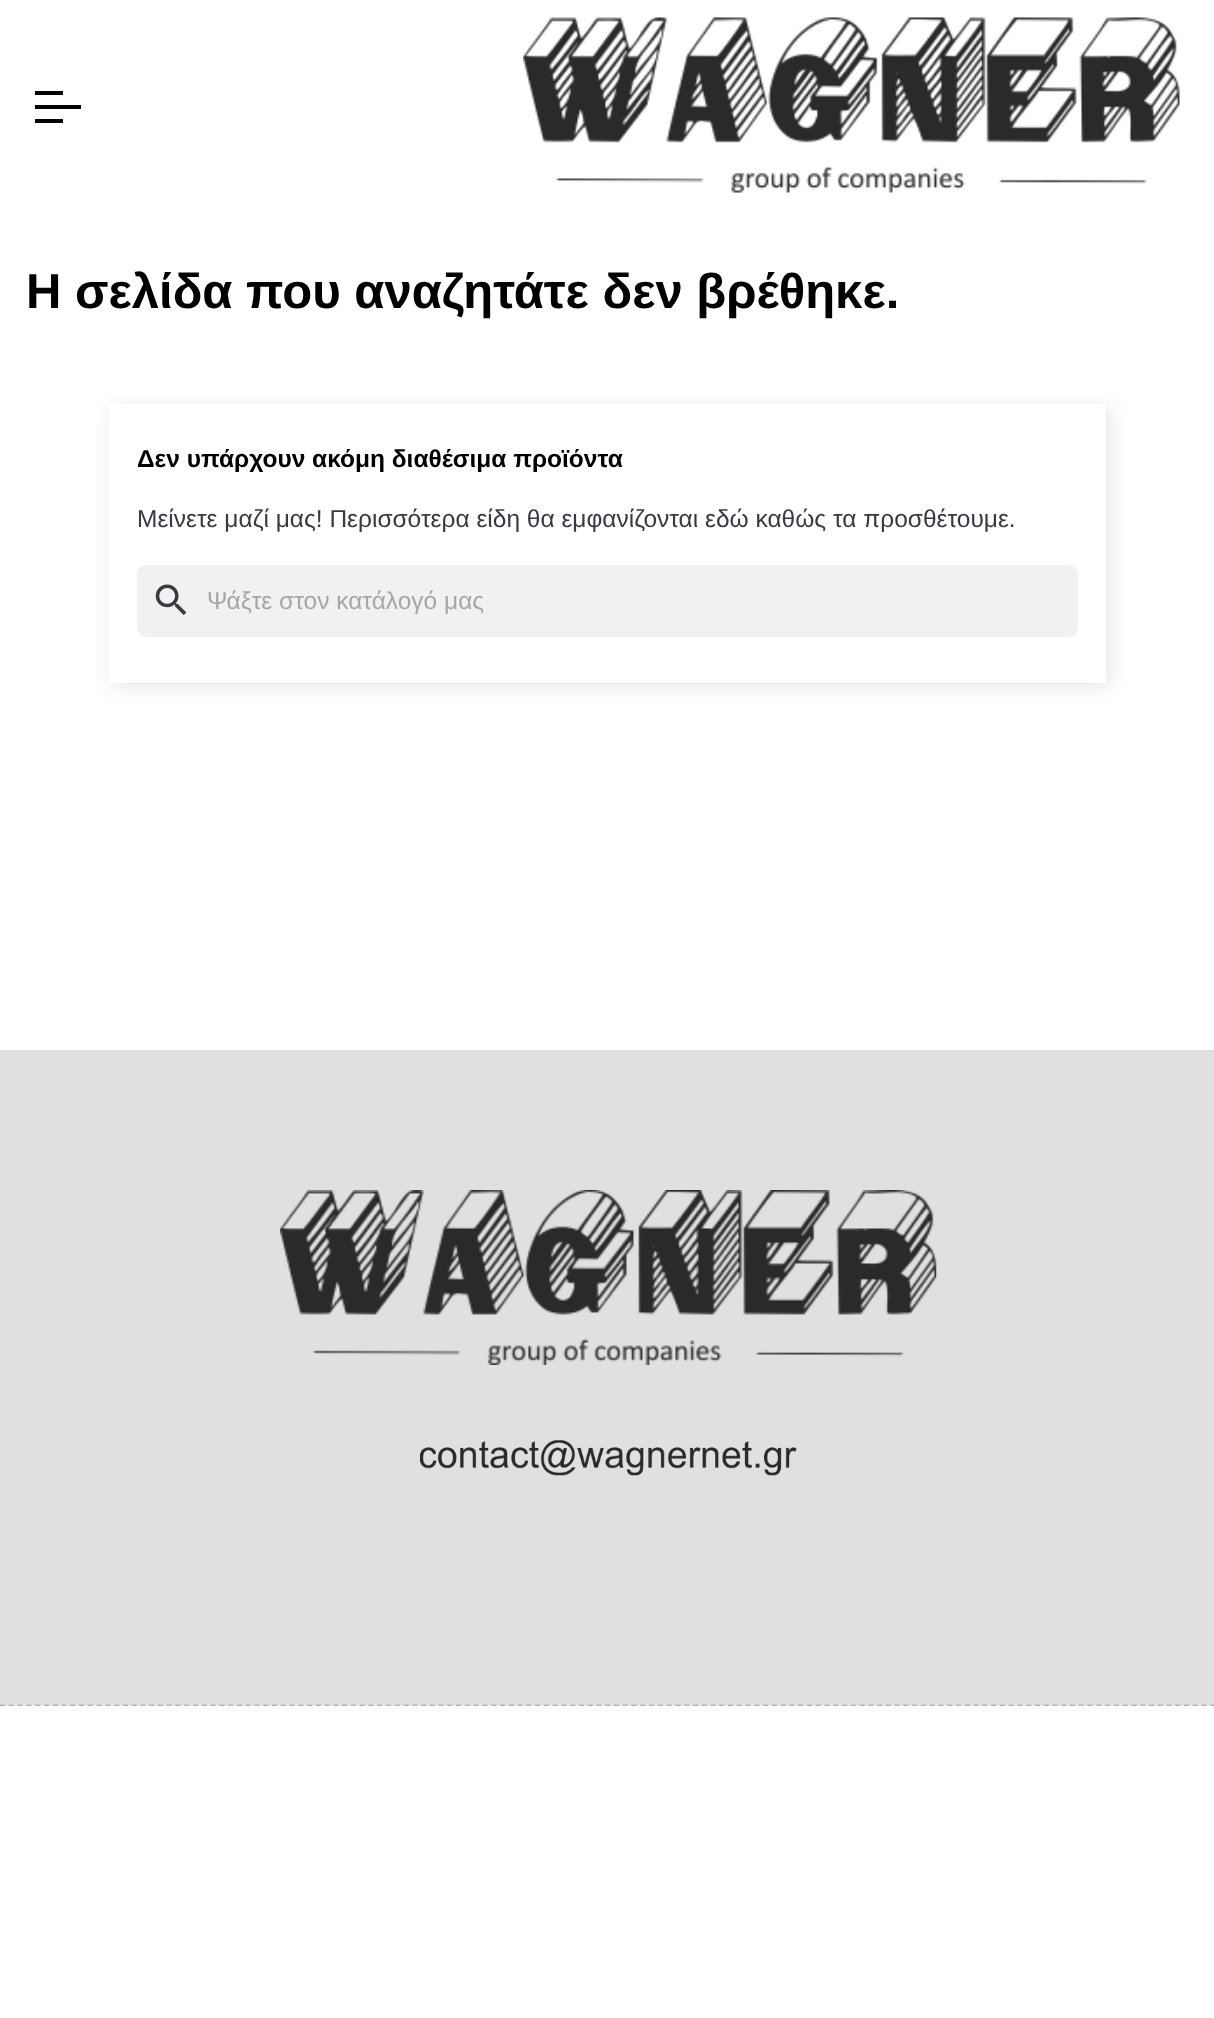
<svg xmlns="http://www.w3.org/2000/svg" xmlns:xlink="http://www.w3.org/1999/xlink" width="1214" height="2018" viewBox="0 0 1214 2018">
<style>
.cls-1{font:bold 49px Liberation Sans;fill:#000000}
.cls-2{font:bold 24.5px Liberation Sans;fill:#000000}
.cls-3{font:24.5px Liberation Sans;fill:#363a42}
.cls-4{font:24.5px Liberation Sans;fill:#a6a6a6}
</style>
<defs>
<clipPath id="clip1"><rect x="0" y="1050" width="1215" height="656"/></clipPath>
</defs>
<rect width="100%" height="100%" fill="#ffffff"/>
<rect fill="#000000" x="35" y="91" width="28" height="4"/>
<rect fill="#000000" x="35" y="105" width="46" height="4"/>
<rect fill="#000000" x="35" y="119" width="28" height="4"/>
<image xlink:href="image0.png" x="523" y="17" width="657" height="176"/>
<rect fill="#000000" fill-opacity="0.1" filter="blur(9.5px)" x="112" y="408" width="998" height="278"/>
<rect fill="#ffffff" x="109" y="404" width="997" height="279"/>
<rect fill="#f1f1f1" x="137" y="565" width="941" height="72" rx="9"/>
<image xlink:href="image1.png" x="155" y="584" width="32" height="31"/>
<rect fill="#e0e0e0" x="0" y="1050" width="1214" height="655"/>
<image xlink:href="image2.png" x="280" y="1190" width="657" height="175"/>
<image xlink:href="image3.png" x="420" y="1440" width="377" height="36"/>
<rect fill="#f2eaea" x="0" y="1705" width="1214" height="1"/>
<g clip-path="url(#clip1)">
<path fill="none" stroke="#c3b0b0" stroke-width="1.8" stroke-dasharray="5.25 3.52" d="M0 1705.5H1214.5"/>
</g>
<text class="cls-1" x="26" y="308">Η σελίδα που αναζητάτε δεν βρέθηκε.</text>
<text class="cls-2" x="137" y="467">Δεν υπάρχουν ακόμη διαθέσιμα προϊόντα</text>
<text class="cls-3" x="137" y="527">Μείνετε μαζί μας! Περισσότερα είδη θα εμφανίζονται εδώ καθώς τα προσθέτουμε.</text>
<text class="cls-4" x="207" y="609">Ψάξτε στον κατάλογό μας</text>
</svg>
